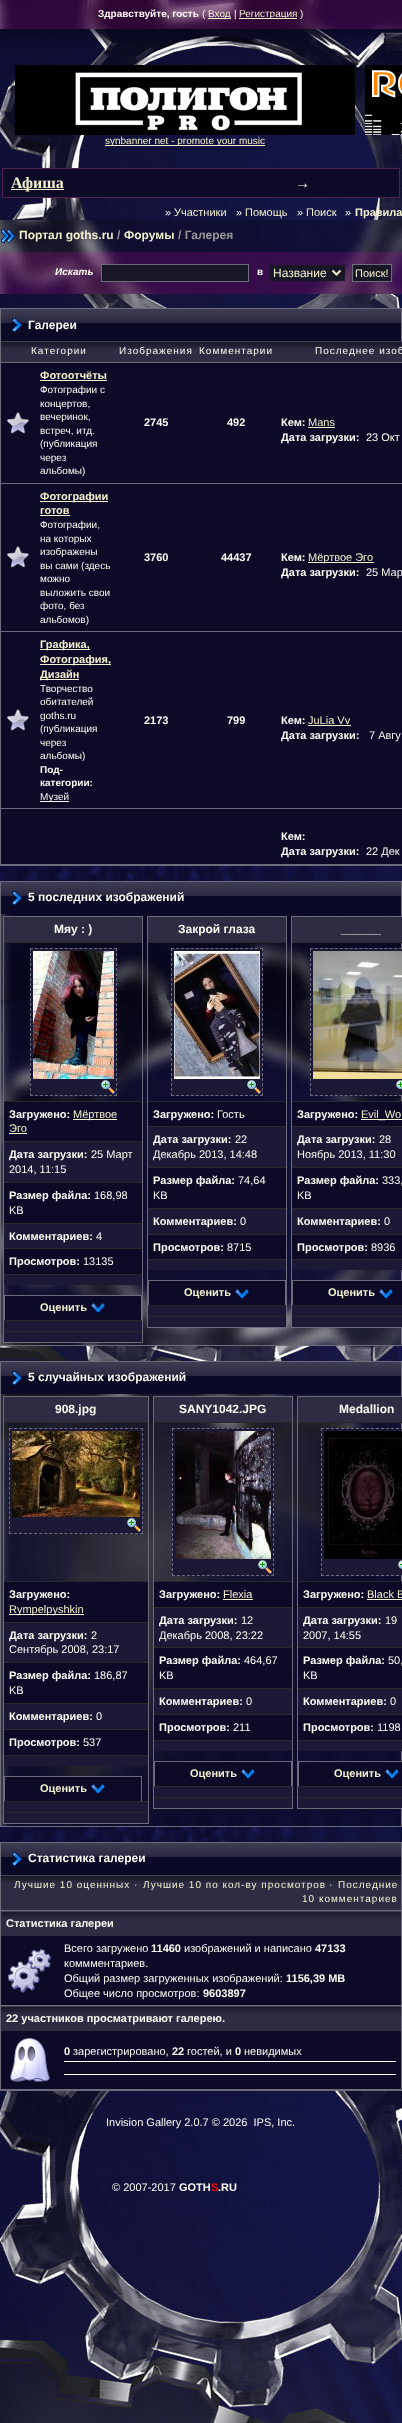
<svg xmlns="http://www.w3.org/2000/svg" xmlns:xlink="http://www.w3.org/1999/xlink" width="402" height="2423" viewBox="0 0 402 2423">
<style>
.cls-1{font:bold 10px Liberation Sans;fill:#fbfbf3}
.cls-2{font:10px Liberation Sans;fill:#fbfbf3}
.cls-3{font:10px Liberation Sans;fill:#f4f1cf}
.cls-4{font:bold 16px Liberation Serif;fill:#f4f1cf}
.cls-5{font:bold 15px Liberation Sans;fill:#fbfbf3}
.cls-6{font:11px Liberation Sans;fill:#fbfbf3}
.cls-7{font:11px Liberation Sans;fill:#f4f1cf}
.cls-8{font:bold 11px Liberation Sans;fill:#f4f1cf}
.cls-9{font:bold 12px Liberation Sans;fill:#f4f1cf}
.cls-10{font:bold 12px Liberation Sans;fill:#999999}
.cls-11{font:italic bold 10px Liberation Sans;fill:#fbfbf3}
.cls-12{font:12px Liberation Sans;fill:#f4f1cf}
.cls-13{font:bold 12px Liberation Sans;fill:#fbfbf3}
.cls-14{font:10px Liberation Sans;letter-spacing:1px;fill:#fbfbf3}
.cls-15{font:bold 11px Liberation Sans;fill:#fbfbf3}
.cls-16{font:10px Liberation Sans;letter-spacing:1px;fill:#f4f1cf}
.cls-17{font:bold 11px Liberation Sans;fill:#ff0000}
</style>
<rect width="100%" height="100%" fill="#ffffff"/>
<image xlink:href="image0.png" x="0" y="29" width="402" height="2394"/>
<image xlink:href="image1.png" x="0" y="0" width="402" height="29"/>
<rect fill="#f4f1cf" x="208" y="18" width="23" height="1"/>
<rect fill="#f4f1cf" x="239" y="18" width="58" height="1"/>
<image xlink:href="image2.png" x="0" y="29" width="402" height="17"/>
<image xlink:href="image3.png" x="365" y="65" width="37" height="70"/>
<image xlink:href="image4.png" x="15" y="65" width="340" height="70"/>
<rect fill="#f4f1cf" x="105" y="145" width="160" height="1"/>
<rect fill="#0d0a28" stroke="#4c2252" x="2.5" y="168.5" width="397" height="29"/>
<rect fill="#f4f1cf" x="11" y="189" width="53" height="1"/>
<image xlink:href="image5.png" x="0" y="220" width="402" height="32"/>
<image xlink:href="image6.png" x="1" y="229" width="14" height="14"/>
<image xlink:href="image7.png" x="0" y="252" width="402" height="42"/>
<rect fill="#181726" stroke="#6d6c7d" x="101.5" y="264.5" width="147" height="17"/>
<rect fill="#181726" x="269" y="265" width="76" height="16"/>
<path fill="none" stroke="#f4f1cf" stroke-width="2" d="M332.5 270.5L336.5 274.5L340.5 270.5"/>
<rect fill="#181726" stroke="#6d6c7d" x="352.5" y="264.5" width="39" height="17"/>
<rect fill="none" stroke="#6d6c7d" x="0.5" y="308.5" width="401" height="557"/>
<rect fill="#0b0a26" x="1" y="323" width="400" height="18"/>
<image xlink:href="image8.png" x="1" y="309" width="400" height="14"/>
<image xlink:href="image9.png" x="12" y="318" width="10" height="14"/>
<rect fill="#2e2c43" x="1" y="349" width="401" height="13"/>
<image xlink:href="image10.png" x="1" y="341" width="115" height="8"/>
<image xlink:href="image11.png" x="116" y="341" width="80" height="8"/>
<image xlink:href="image11.png" x="196" y="341" width="80" height="8"/>
<image xlink:href="image12.png" x="276" y="341" width="126" height="8"/>
<rect fill="#6d6c7d" x="1" y="362" width="401" height="1"/>
<rect fill="#0d0a28" x="1" y="363" width="401" height="120"/>
<image xlink:href="image13.png" x="7" y="412" width="22" height="22"/>
<rect fill="#f4f1cf" x="40" y="380" width="67" height="1"/>
<rect fill="#6d6c7d" x="1" y="483" width="401" height="1"/>
<rect fill="#f4f1cf" x="308" y="427" width="27" height="1"/>
<rect fill="#0d0a28" x="1" y="484" width="401" height="147"/>
<image xlink:href="image13.png" x="7" y="546" width="22" height="22"/>
<rect fill="#f4f1cf" x="40" y="501" width="68" height="1"/>
<rect fill="#f4f1cf" x="40" y="515" width="30" height="1"/>
<rect fill="#6d6c7d" x="1" y="631" width="401" height="1"/>
<rect fill="#f4f1cf" x="308" y="562" width="66" height="1"/>
<rect fill="#0d0a28" x="1" y="632" width="401" height="176"/>
<image xlink:href="image13.png" x="7" y="709" width="22" height="22"/>
<rect fill="#f4f1cf" x="40" y="649" width="50" height="1"/>
<rect fill="#f4f1cf" x="40" y="664" width="71" height="1"/>
<rect fill="#f4f1cf" x="40" y="679" width="39" height="1"/>
<rect fill="#fbfbf3" x="40" y="801" width="29" height="1"/>
<rect fill="#6d6c7d" x="1" y="808" width="401" height="1"/>
<rect fill="#f4f1cf" x="308" y="725" width="43" height="1"/>
<rect fill="#0d0a28" x="1" y="809" width="401" height="55"/>
<rect fill="#6d6c7d" x="1" y="864" width="401" height="1"/>
<image xlink:href="image14.png" x="1" y="914" width="400" height="431"/>
<rect fill="none" stroke="#6d6c7d" x="0.5" y="881.5" width="401" height="464"/>
<rect fill="#0b0a26" x="1" y="896" width="400" height="18"/>
<image xlink:href="image8.png" x="1" y="882" width="400" height="14"/>
<image xlink:href="image9.png" x="12" y="891" width="10" height="14"/>
<rect fill="none" stroke="#6d6c7d" x="3.5" y="916.5" width="139" height="426"/>
<rect fill="#2e2c43" x="4" y="917" width="138" height="25"/>
<rect fill="#282828" x="4" y="942" width="138" height="1"/>
<rect fill="#1c1937" x="30" y="948" width="87" height="148"/>
<path fill="none" stroke="#6d6c7d" stroke-dasharray="3 1.94" d="M30 948.5H117"/>
<path fill="none" stroke="#6d6c7d" stroke-dasharray="3 2" d="M116.5 948V1096"/>
<path fill="none" stroke="#6d6c7d" stroke-dasharray="3 1.94" d="M30 1095.5H117"/>
<path fill="none" stroke="#6d6c7d" stroke-dasharray="3 2" d="M30.5 948V1096"/>
<image xlink:href="image15.png" x="33" y="951" width="82" height="143"/>
<rect fill="#0d0a28" x="4" y="1102" width="138" height="39"/>
<rect fill="#282828" x="4" y="1101" width="138" height="1"/>
<rect fill="#f4f1cf" x="73" y="1119" width="44" height="1"/>
<rect fill="#f4f1cf" x="9" y="1133" width="18" height="1"/>
<rect fill="#1c1937" x="4" y="1142" width="138" height="40"/>
<rect fill="#282828" x="4" y="1141" width="138" height="1"/>
<rect fill="#0d0a28" x="4" y="1183" width="138" height="40"/>
<rect fill="#282828" x="4" y="1182" width="138" height="1"/>
<rect fill="#1c1937" x="4" y="1224" width="138" height="24"/>
<rect fill="#282828" x="4" y="1223" width="138" height="1"/>
<rect fill="#0d0a28" x="4" y="1249" width="138" height="25"/>
<rect fill="#282828" x="4" y="1248" width="138" height="1"/>
<rect fill="#1c1937" x="4" y="1275" width="138" height="10"/>
<rect fill="#282828" x="4" y="1274" width="138" height="1"/>
<rect fill="#0d0a28" stroke="#6d6c7d" x="4.5" y="1295.5" width="137" height="25"/>
<image xlink:href="image16.png" x="91" y="1303" width="14" height="10"/>
<rect fill="#1c1937" x="4" y="1321" width="138" height="10"/>
<rect fill="#282828" x="4" y="1320" width="138" height="1"/>
<rect fill="#1c1937" x="4" y="1332" width="138" height="10"/>
<rect fill="#282828" x="4" y="1331" width="138" height="1"/>
<rect fill="none" stroke="#6d6c7d" x="147.5" y="916.5" width="139" height="411"/>
<rect fill="#2e2c43" x="148" y="917" width="138" height="25"/>
<rect fill="#282828" x="148" y="942" width="138" height="1"/>
<rect fill="#1c1937" x="171" y="948" width="92" height="148"/>
<path fill="none" stroke="#6d6c7d" stroke-dasharray="3 1.94" d="M171 948.5H263"/>
<path fill="none" stroke="#6d6c7d" stroke-dasharray="3 2" d="M262.5 948V1096"/>
<path fill="none" stroke="#6d6c7d" stroke-dasharray="3 1.94" d="M171 1095.5H263"/>
<path fill="none" stroke="#6d6c7d" stroke-dasharray="3 2" d="M171.5 948V1096"/>
<image xlink:href="image17.png" x="174" y="951" width="87" height="143"/>
<rect fill="#0d0a28" x="148" y="1102" width="138" height="24"/>
<rect fill="#282828" x="148" y="1101" width="138" height="1"/>
<rect fill="#1c1937" x="148" y="1127" width="138" height="40"/>
<rect fill="#282828" x="148" y="1126" width="138" height="1"/>
<rect fill="#0d0a28" x="148" y="1168" width="138" height="40"/>
<rect fill="#282828" x="148" y="1167" width="138" height="1"/>
<rect fill="#1c1937" x="148" y="1209" width="138" height="25"/>
<rect fill="#282828" x="148" y="1208" width="138" height="1"/>
<rect fill="#0d0a28" x="148" y="1235" width="138" height="24"/>
<rect fill="#282828" x="148" y="1234" width="138" height="1"/>
<rect fill="#1c1937" x="148" y="1260" width="138" height="10"/>
<rect fill="#282828" x="148" y="1259" width="138" height="1"/>
<rect fill="#0d0a28" x="149" y="1281" width="136" height="24"/>
<rect fill="none" stroke="#6d6c7d" x="148.5" y="1280.5" width="137" height="26"/>
<image xlink:href="image16.png" x="235" y="1289" width="14" height="10"/>
<rect fill="#1c1937" x="148" y="1306" width="138" height="10"/>
<rect fill="#282828" x="148" y="1305" width="138" height="1"/>
<rect fill="#1c1937" x="148" y="1317" width="138" height="10"/>
<rect fill="#282828" x="148" y="1316" width="138" height="1"/>
<rect fill="none" stroke="#6d6c7d" x="291.5" y="916.5" width="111" height="411"/>
<rect fill="#2e2c43" x="292" y="917" width="110" height="25"/>
<rect fill="#282828" x="292" y="942" width="110" height="1"/>
<rect fill="#1c1937" x="310" y="948" width="92" height="148"/>
<path fill="none" stroke="#6d6c7d" stroke-dasharray="3 1.95" d="M310 948.5H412"/>
<path fill="none" stroke="#6d6c7d" stroke-dasharray="3 1.95" d="M310 1095.5H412"/>
<path fill="none" stroke="#6d6c7d" stroke-dasharray="3 2" d="M310.5 948V1096"/>
<image xlink:href="image18.png" x="313" y="951" width="89" height="139"/>
<rect fill="#0d0a28" x="292" y="1102" width="110" height="24"/>
<rect fill="#282828" x="292" y="1101" width="110" height="1"/>
<rect fill="#f4f1cf" x="361" y="1119" width="41" height="1"/>
<rect fill="#1c1937" x="292" y="1127" width="110" height="40"/>
<rect fill="#282828" x="292" y="1126" width="110" height="1"/>
<rect fill="#0d0a28" x="292" y="1168" width="110" height="40"/>
<rect fill="#282828" x="292" y="1167" width="110" height="1"/>
<rect fill="#1c1937" x="292" y="1209" width="110" height="25"/>
<rect fill="#282828" x="292" y="1208" width="110" height="1"/>
<rect fill="#0d0a28" x="292" y="1235" width="110" height="24"/>
<rect fill="#282828" x="292" y="1234" width="110" height="1"/>
<rect fill="#1c1937" x="292" y="1260" width="110" height="10"/>
<rect fill="#282828" x="292" y="1259" width="110" height="1"/>
<rect fill="#0d0a28" x="293" y="1281" width="109" height="24"/>
<rect fill="none" stroke="#6d6c7d" x="292.5" y="1280.5" width="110" height="26"/>
<image xlink:href="image16.png" x="379" y="1289" width="14" height="10"/>
<rect fill="#1c1937" x="292" y="1306" width="110" height="10"/>
<rect fill="#282828" x="292" y="1305" width="110" height="1"/>
<rect fill="#1c1937" x="292" y="1317" width="110" height="10"/>
<rect fill="#282828" x="292" y="1316" width="110" height="1"/>
<image xlink:href="image19.png" x="1" y="1394" width="400" height="432"/>
<rect fill="none" stroke="#6d6c7d" x="0.5" y="1361.5" width="401" height="465"/>
<rect fill="#0b0a26" x="1" y="1376" width="400" height="18"/>
<image xlink:href="image8.png" x="1" y="1362" width="400" height="14"/>
<image xlink:href="image9.png" x="12" y="1371" width="10" height="14"/>
<rect fill="none" stroke="#6d6c7d" x="3.5" y="1396.5" width="145" height="427"/>
<rect fill="#2e2c43" x="4" y="1397" width="144" height="25"/>
<rect fill="#282828" x="4" y="1422" width="144" height="1"/>
<rect fill="#1c1937" x="9" y="1428" width="134" height="106"/>
<path fill="none" stroke="#6d6c7d" stroke-dasharray="3 2.04" d="M9 1428.5H143"/>
<path fill="none" stroke="#6d6c7d" stroke-dasharray="3 1.9" d="M142.5 1428V1534"/>
<path fill="none" stroke="#6d6c7d" stroke-dasharray="3 2.04" d="M9 1533.5H143"/>
<path fill="none" stroke="#6d6c7d" stroke-dasharray="3 1.9" d="M9.5 1428V1534"/>
<image xlink:href="image20.png" x="12" y="1431" width="129" height="101"/>
<rect fill="#0d0a28" x="4" y="1582" width="144" height="40"/>
<rect fill="#282828" x="4" y="1581" width="144" height="1"/>
<rect fill="#f4f1cf" x="9" y="1614" width="75" height="1"/>
<rect fill="#1c1937" x="4" y="1623" width="144" height="39"/>
<rect fill="#282828" x="4" y="1622" width="144" height="1"/>
<rect fill="#0d0a28" x="4" y="1663" width="144" height="40"/>
<rect fill="#282828" x="4" y="1662" width="144" height="1"/>
<rect fill="#1c1937" x="4" y="1704" width="144" height="25"/>
<rect fill="#282828" x="4" y="1703" width="144" height="1"/>
<rect fill="#0d0a28" x="4" y="1730" width="144" height="25"/>
<rect fill="#282828" x="4" y="1729" width="144" height="1"/>
<rect fill="#1c1937" x="4" y="1756" width="144" height="10"/>
<rect fill="#282828" x="4" y="1755" width="144" height="1"/>
<rect fill="#0d0a28" stroke="#6d6c7d" x="4.5" y="1776.5" width="137" height="25"/>
<image xlink:href="image16.png" x="91" y="1784" width="14" height="10"/>
<rect fill="#1c1937" x="4" y="1802" width="144" height="10"/>
<rect fill="#282828" x="4" y="1801" width="144" height="1"/>
<rect fill="#1c1937" x="4" y="1813" width="144" height="10"/>
<rect fill="#282828" x="4" y="1812" width="144" height="1"/>
<rect fill="none" stroke="#6d6c7d" x="153.5" y="1396.5" width="139" height="412"/>
<rect fill="#2e2c43" x="154" y="1397" width="138" height="25"/>
<rect fill="#282828" x="154" y="1422" width="138" height="1"/>
<rect fill="#1c1937" x="172" y="1428" width="102" height="148"/>
<path fill="none" stroke="#6d6c7d" stroke-dasharray="3 1.95" d="M172 1428.5H274"/>
<path fill="none" stroke="#6d6c7d" stroke-dasharray="3 2" d="M273.5 1428V1576"/>
<path fill="none" stroke="#6d6c7d" stroke-dasharray="3 1.95" d="M172 1575.5H274"/>
<path fill="none" stroke="#6d6c7d" stroke-dasharray="3 2" d="M172.5 1428V1576"/>
<image xlink:href="image21.png" x="175" y="1431" width="97" height="143"/>
<rect fill="#0d0a28" x="154" y="1582" width="138" height="25"/>
<rect fill="#282828" x="154" y="1581" width="138" height="1"/>
<rect fill="#f4f1cf" x="223" y="1599" width="30" height="1"/>
<rect fill="#1c1937" x="154" y="1608" width="138" height="39"/>
<rect fill="#282828" x="154" y="1607" width="138" height="1"/>
<rect fill="#0d0a28" x="154" y="1648" width="138" height="40"/>
<rect fill="#282828" x="154" y="1647" width="138" height="1"/>
<rect fill="#1c1937" x="154" y="1689" width="138" height="25"/>
<rect fill="#282828" x="154" y="1688" width="138" height="1"/>
<rect fill="#0d0a28" x="154" y="1715" width="138" height="25"/>
<rect fill="#282828" x="154" y="1714" width="138" height="1"/>
<rect fill="#1c1937" x="154" y="1741" width="138" height="10"/>
<rect fill="#282828" x="154" y="1740" width="138" height="1"/>
<rect fill="#0d0a28" stroke="#6d6c7d" x="154.5" y="1761.5" width="137" height="25"/>
<image xlink:href="image16.png" x="241" y="1769" width="14" height="10"/>
<rect fill="#1c1937" x="154" y="1787" width="138" height="10"/>
<rect fill="#282828" x="154" y="1786" width="138" height="1"/>
<rect fill="#1c1937" x="154" y="1798" width="138" height="10"/>
<rect fill="#282828" x="154" y="1797" width="138" height="1"/>
<rect fill="none" stroke="#6d6c7d" x="297.5" y="1396.5" width="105" height="412"/>
<rect fill="#2e2c43" x="298" y="1397" width="104" height="25"/>
<rect fill="#282828" x="298" y="1422" width="104" height="1"/>
<rect fill="#1c1937" x="321" y="1428" width="81" height="148"/>
<path fill="none" stroke="#6d6c7d" stroke-dasharray="3 2" d="M321 1428.5H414"/>
<path fill="none" stroke="#6d6c7d" stroke-dasharray="3 2" d="M321 1575.5H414"/>
<path fill="none" stroke="#6d6c7d" stroke-dasharray="3 2" d="M321.5 1428V1576"/>
<image xlink:href="image22.png" x="324" y="1431" width="78" height="139"/>
<rect fill="#0d0a28" x="298" y="1582" width="104" height="25"/>
<rect fill="#282828" x="298" y="1581" width="104" height="1"/>
<rect fill="#f4f1cf" x="367" y="1599" width="35" height="1"/>
<rect fill="#1c1937" x="298" y="1608" width="104" height="39"/>
<rect fill="#282828" x="298" y="1607" width="104" height="1"/>
<rect fill="#0d0a28" x="298" y="1648" width="104" height="40"/>
<rect fill="#282828" x="298" y="1647" width="104" height="1"/>
<rect fill="#1c1937" x="298" y="1689" width="104" height="25"/>
<rect fill="#282828" x="298" y="1688" width="104" height="1"/>
<rect fill="#0d0a28" x="298" y="1715" width="104" height="25"/>
<rect fill="#282828" x="298" y="1714" width="104" height="1"/>
<rect fill="#1c1937" x="298" y="1741" width="104" height="10"/>
<rect fill="#282828" x="298" y="1740" width="104" height="1"/>
<rect fill="#0d0a28" stroke="#6d6c7d" x="298.5" y="1761.5" width="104" height="25"/>
<image xlink:href="image16.png" x="385" y="1769" width="14" height="10"/>
<rect fill="#1c1937" x="298" y="1787" width="104" height="10"/>
<rect fill="#282828" x="298" y="1786" width="104" height="1"/>
<rect fill="#1c1937" x="298" y="1798" width="104" height="10"/>
<rect fill="#282828" x="298" y="1797" width="104" height="1"/>
<rect fill="none" stroke="#6d6c7d" x="0.5" y="1842.5" width="401" height="248"/>
<rect fill="#0b0a26" x="1" y="1857" width="400" height="18"/>
<image xlink:href="image8.png" x="1" y="1843" width="400" height="14"/>
<image xlink:href="image9.png" x="12" y="1852" width="10" height="14"/>
<rect fill="#2e2c43" x="1" y="1883" width="400" height="27"/>
<image xlink:href="image23.png" x="1" y="1875" width="400" height="8"/>
<rect fill="#6d6c7d" x="1" y="1910" width="401" height="1"/>
<rect fill="#2e2c43" x="1" y="1919" width="400" height="17"/>
<image xlink:href="image23.png" x="1" y="1911" width="400" height="8"/>
<rect fill="#0d0a28" x="1" y="1936" width="400" height="69"/>
<image xlink:href="image24.png" x="8" y="1949" width="44" height="44"/>
<rect fill="#6d6c7d" x="1" y="2005" width="401" height="1"/>
<rect fill="#2e2c43" x="1" y="2014" width="400" height="17"/>
<image xlink:href="image23.png" x="1" y="2006" width="400" height="8"/>
<rect fill="#0d0a28" x="1" y="2031" width="400" height="58"/>
<image xlink:href="image25.png" x="10" y="2038" width="40" height="44"/>
<rect fill="#6d6c7d" x="1" y="2089" width="401" height="1"/>
<rect fill="#ffffff" x="64" y="2061" width="332" height="1"/>
<rect fill="#ffffff" x="64" y="2074" width="332" height="1"/>
<text class="cls-1" x="98" y="17">Здравствуйте, гость</text>
<text class="cls-2" x="202" y="17">(</text>
<text class="cls-3" x="208" y="17">Вход</text>
<text class="cls-2" x="234" y="17">|</text>
<text class="cls-3" x="239" y="17">Регистрация</text>
<text class="cls-2" x="300" y="17">)</text>
<text class="cls-3" x="105" y="144">synbanner net - promote your music</text>
<text class="cls-4" x="11" y="188">Афиша</text>
<text class="cls-5" x="295" y="188">→</text>
<text class="cls-6" x="165" y="216">»</text>
<text class="cls-7" x="174" y="216">Участники</text>
<text class="cls-6" x="236" y="216">»</text>
<text class="cls-7" x="245" y="216">Помощь</text>
<text class="cls-6" x="297" y="216">»</text>
<text class="cls-7" x="306" y="216">Поиск</text>
<text class="cls-6" x="345" y="216">»</text>
<text class="cls-8" x="355" y="216">Правила</text>
<text class="cls-9" x="19" y="239">Портал goths.ru</text>
<text class="cls-10" x="117" y="239">/</text>
<text class="cls-9" x="124" y="239">Форумы</text>
<text class="cls-10" x="178" y="239">/ Галерея</text>
<text class="cls-11" x="55" y="275">Искать</text>
<text class="cls-1" x="257" y="275">в</text>
<text class="cls-12" x="273" y="277">Название</text>
<text class="cls-7" x="355" y="277">Поиск!</text>
<text class="cls-13" x="28" y="329">Галереи</text>
<text class="cls-14" x="31" y="354">Категории</text>
<text class="cls-14" x="119" y="354">Изображения</text>
<text class="cls-14" x="199" y="354">Комментарии</text>
<text class="cls-14" x="315" y="354">Последнее изоб</text>
<text class="cls-8" x="40" y="379">Фотоотчёты</text>
<text class="cls-2"><tspan x="40" y="393">Фотографии с</tspan><tspan x="40" y="407">концертов,</tspan><tspan x="40" y="420">вечеринок,</tspan><tspan x="40" y="434">встреч, итд.</tspan><tspan x="40" y="447">(публикация</tspan><tspan x="40" y="461">через</tspan><tspan x="40" y="474">альбомы)</tspan></text>
<text class="cls-15" x="144" y="426">2745</text>
<text class="cls-15" x="227" y="426">492</text>
<text class="cls-15" x="281" y="426">Кем:</text>
<text class="cls-7" x="308" y="426">Mans</text>
<text class="cls-15" x="281" y="441">Дата загрузки:</text>
<text class="cls-6" x="366" y="441">23 Окт</text>
<text class="cls-8"><tspan x="40" y="500">Фотографии</tspan><tspan x="40" y="514">готов</tspan></text>
<text class="cls-2"><tspan x="40" y="528">Фотографии,</tspan><tspan x="40" y="542">на которых</tspan><tspan x="40" y="555">изображены</tspan><tspan x="40" y="569">вы сами (здесь</tspan><tspan x="40" y="582">можно</tspan><tspan x="40" y="596">выложить свои</tspan><tspan x="40" y="609">фото, без</tspan><tspan x="40" y="623">альбомов)</tspan></text>
<text class="cls-15" x="144" y="561">3760</text>
<text class="cls-15" x="221" y="561">44437</text>
<text class="cls-15" x="281" y="561">Кем:</text>
<text class="cls-7" x="308" y="561">Мёртвое Эго</text>
<text class="cls-15" x="281" y="576">Дата загрузки:</text>
<text class="cls-6" x="366" y="576">25 Мар</text>
<text class="cls-8"><tspan x="40" y="648">Графика,</tspan><tspan x="40" y="663">Фотография,</tspan><tspan x="40" y="678">Дизайн</tspan></text>
<text class="cls-2"><tspan x="40" y="692">Творчество</tspan><tspan x="40" y="705">обитателей</tspan><tspan x="40" y="719">goths.ru</tspan><tspan x="40" y="732">(публикация</tspan><tspan x="40" y="746">через</tspan><tspan x="40" y="759">альбомы)</tspan></text>
<text class="cls-1"><tspan x="40" y="773">Под-</tspan><tspan x="40" y="786">категории:</tspan></text>
<text class="cls-2" x="40" y="800">Музей</text>
<text class="cls-15" x="144" y="724">2173</text>
<text class="cls-15" x="227" y="724">799</text>
<text class="cls-15" x="281" y="724">Кем:</text>
<text class="cls-7" x="308" y="724">JuLia Vv</text>
<text class="cls-15" x="281" y="739">Дата загрузки:</text>
<text class="cls-6" x="369" y="739">7 Авгу</text>
<text class="cls-15"><tspan x="281" y="840">Кем:</tspan><tspan x="281" y="855">Дата загрузки:</tspan></text>
<text class="cls-6" x="366" y="855">22 Дек</text>
<text class="cls-13" x="28" y="901">5 последних изображений</text>
<text class="cls-13" x="54" y="933">Мяу : )</text>
<text class="cls-15" x="9" y="1118">Загружено:</text>
<text class="cls-7" x="73" y="1118">Мёртвое</text>
<text class="cls-7" x="9" y="1132">Эго</text>
<text class="cls-15" x="9" y="1158">Дата загрузки:</text>
<text class="cls-6" x="91" y="1158">25 Март</text>
<text class="cls-6" x="9" y="1173">2014, 11:15</text>
<text class="cls-15" x="9" y="1199">Размер файла:</text>
<text class="cls-6" x="94" y="1199">168,98</text>
<text class="cls-6" x="9" y="1214">KB</text>
<text class="cls-15" x="9" y="1240">Комментариев:</text>
<text class="cls-6" x="96" y="1240">4</text>
<text class="cls-15" x="9" y="1265">Просмотров:</text>
<text class="cls-6" x="83" y="1265">13135</text>
<text class="cls-8" x="40" y="1311">Оценить</text>
<text class="cls-13" x="178" y="933">Закрой глаза</text>
<text class="cls-15" x="153" y="1118">Загружено:</text>
<text class="cls-6" x="217" y="1118">Гость</text>
<text class="cls-15" x="153" y="1143">Дата загрузки:</text>
<text class="cls-6" x="235" y="1143">22</text>
<text class="cls-6" x="153" y="1158">Декабрь 2013, 14:48</text>
<text class="cls-15" x="153" y="1184">Размер файла:</text>
<text class="cls-6" x="238" y="1184">74,64</text>
<text class="cls-6" x="153" y="1199">KB</text>
<text class="cls-15" x="153" y="1225">Комментариев:</text>
<text class="cls-6" x="240" y="1225">0</text>
<text class="cls-15" x="153" y="1251">Просмотров:</text>
<text class="cls-6" x="227" y="1251">8715</text>
<text class="cls-8" x="184" y="1296">Оценить</text>
<text class="cls-13" x="341" y="933">______</text>
<text class="cls-15" x="297" y="1118">Загружено:</text>
<text class="cls-7" x="361" y="1118">Evil_Wo</text>
<text class="cls-15" x="297" y="1143">Дата загрузки:</text>
<text class="cls-6" x="379" y="1143">28</text>
<text class="cls-6" x="297" y="1158">Ноябрь 2013, 11:30</text>
<text class="cls-15" x="297" y="1184">Размер файла:</text>
<text class="cls-6" x="382" y="1184">333,</text>
<text class="cls-6" x="297" y="1199">KB</text>
<text class="cls-15" x="297" y="1225">Комментариев:</text>
<text class="cls-6" x="384" y="1225">0</text>
<text class="cls-15" x="297" y="1251">Просмотров:</text>
<text class="cls-6" x="371" y="1251">8936</text>
<text class="cls-8" x="328" y="1296">Оценить</text>
<text class="cls-13" x="28" y="1381">5 случайных изображений</text>
<text class="cls-13" x="55" y="1413">908.jpg</text>
<text class="cls-15" x="9" y="1598">Загружено:</text>
<text class="cls-7" x="9" y="1613">Rympelpyshkin</text>
<text class="cls-15" x="9" y="1639">Дата загрузки:</text>
<text class="cls-6" x="91" y="1639">2</text>
<text class="cls-6" x="9" y="1653">Сентябрь 2008, 23:17</text>
<text class="cls-15" x="9" y="1679">Размер файла:</text>
<text class="cls-6" x="94" y="1679">186,87</text>
<text class="cls-6" x="9" y="1694">KB</text>
<text class="cls-15" x="9" y="1720">Комментариев:</text>
<text class="cls-6" x="96" y="1720">0</text>
<text class="cls-15" x="9" y="1746">Просмотров:</text>
<text class="cls-6" x="83" y="1746">537</text>
<text class="cls-8" x="40" y="1792">Оценить</text>
<text class="cls-13" x="179" y="1413">SANY1042.JPG</text>
<text class="cls-15" x="159" y="1598">Загружено:</text>
<text class="cls-7" x="223" y="1598">Flexia</text>
<text class="cls-15" x="159" y="1624">Дата загрузки:</text>
<text class="cls-6" x="241" y="1624">12</text>
<text class="cls-6" x="159" y="1639">Декабрь 2008, 23:22</text>
<text class="cls-15" x="159" y="1664">Размер файла:</text>
<text class="cls-6" x="244" y="1664">464,67</text>
<text class="cls-6" x="159" y="1679">KB</text>
<text class="cls-15" x="159" y="1705">Комментариев:</text>
<text class="cls-6" x="246" y="1705">0</text>
<text class="cls-15" x="159" y="1731">Просмотров:</text>
<text class="cls-6" x="233" y="1731">211</text>
<text class="cls-8" x="190" y="1777">Оценить</text>
<text class="cls-13" x="339" y="1413">Medallion</text>
<text class="cls-15" x="303" y="1598">Загружено:</text>
<text class="cls-7" x="367" y="1598">Black B</text>
<text class="cls-15" x="303" y="1624">Дата загрузки:</text>
<text class="cls-6" x="385" y="1624">19</text>
<text class="cls-6" x="303" y="1639">2007, 14:55</text>
<text class="cls-15" x="303" y="1664">Размер файла:</text>
<text class="cls-6" x="388" y="1664">50,</text>
<text class="cls-6" x="303" y="1679">KB</text>
<text class="cls-15" x="303" y="1705">Комментариев:</text>
<text class="cls-6" x="390" y="1705">0</text>
<text class="cls-15" x="303" y="1731">Просмотров:</text>
<text class="cls-6" x="377" y="1731">1198</text>
<text class="cls-8" x="334" y="1777">Оценить</text>
<text class="cls-13" x="28" y="1862">Статистика галереи</text>
<text class="cls-16" x="14" y="1888">Лучшие 10 оценнных</text>
<text class="cls-14" x="134" y="1888">·</text>
<text class="cls-16" x="143" y="1888">Лучшие 10 по кол-ву просмотров</text>
<text class="cls-14" x="329" y="1888">·</text>
<text class="cls-16" x="338" y="1888">Последние</text>
<text class="cls-16" x="302" y="1902">10 комментариев</text>
<text class="cls-15" x="6" y="1927">Статистика галереи</text>
<text class="cls-6" x="64" y="1952">Всего загружено</text>
<text class="cls-15" x="151" y="1952">11460</text>
<text class="cls-6" x="184" y="1952">изображений и написано</text>
<text class="cls-15" x="315" y="1952">47133</text>
<text class="cls-6"><tspan x="64" y="1967">коммментариев.</tspan><tspan x="64" y="1982">Общий размер загруженных изображений:</tspan></text>
<text class="cls-15" x="286" y="1982">1156,39 MB</text>
<text class="cls-6" x="64" y="1997">Общее число просмотров:</text>
<text class="cls-15" x="203" y="1997">9603897</text>
<text class="cls-15" x="6" y="2022">22 участников просматривают галерею.</text>
<text class="cls-15" x="64" y="2055">0</text>
<text class="cls-6" x="73" y="2055">зарегистрировано,</text>
<text class="cls-15" x="172" y="2055">22</text>
<text class="cls-6" x="187" y="2055">гостей, и</text>
<text class="cls-15" x="235" y="2055">0</text>
<text class="cls-6" x="244" y="2055">невидимых</text>
<text class="cls-6" xml:space="preserve" x="106" y="2126">Invision Gallery 2.0.7 © 2026  IPS, Inc.</text>
<text class="cls-6" x="112" y="2191">© 2007-2017</text>
<text class="cls-15" x="179" y="2191">GOTH</text>
<text class="cls-17" x="211" y="2191">S</text>
<text class="cls-15" x="218" y="2191">.RU</text>
</svg>
